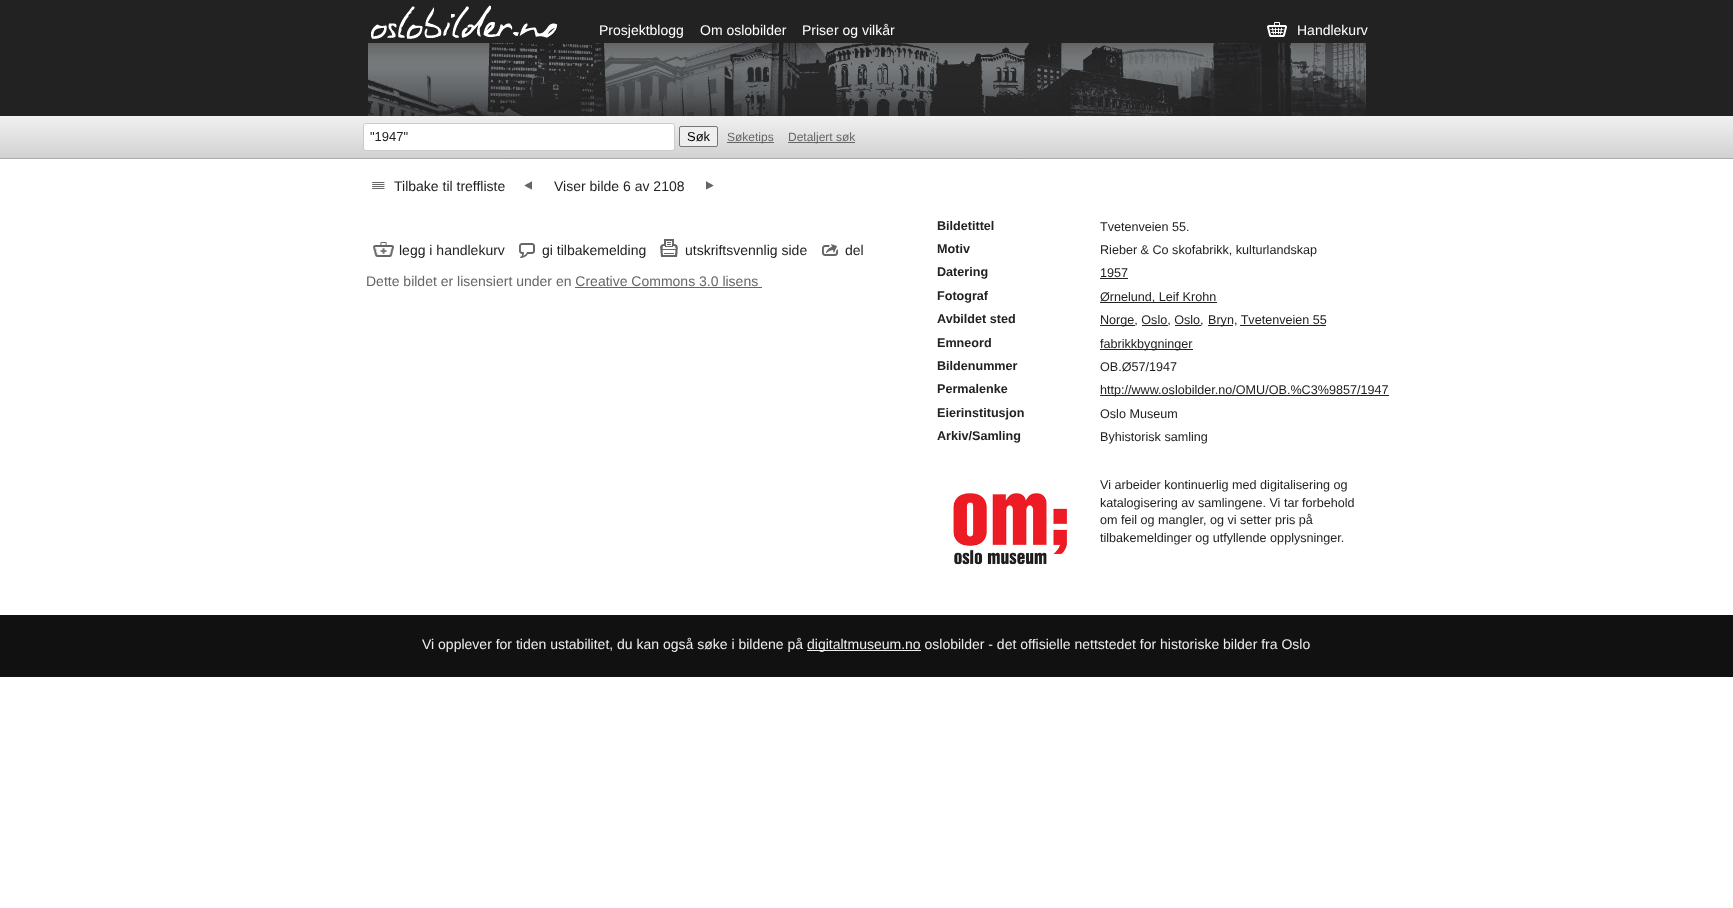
<svg xmlns="http://www.w3.org/2000/svg" xmlns:xlink="http://www.w3.org/1999/xlink" width="1733" height="908" viewBox="0 0 1733 908">
<style>
.cls-1{font:14px Liberation Sans;fill:#ffffff}
.cls-2{font:13px Liberation Sans;fill:#222222}
.cls-3{font:13px Liberation Sans;fill:#000000}
.cls-4{font:12px Liberation Sans;fill:#666666}
.cls-5{font:14px Liberation Sans;fill:#222222}
.cls-6{font:14px Liberation Sans;fill:#666666}
.cls-7{font:bold 12.6px Liberation Sans;fill:#222222}
.cls-8{font:12.6px Liberation Sans;fill:#222222}
.cls-9{font:14px Liberation Sans;fill:#eeeeee}
</style>
<defs>
<linearGradient id="g1" gradientUnits="userSpaceOnUse" x1="867" y1="116" x2="867" y2="158"><stop offset="0" stop-color="#f1f1f1"/><stop offset="1" stop-color="#d1d1d1"/></linearGradient>
</defs>
<rect width="100%" height="100%" fill="#ffffff"/>
<rect fill="#222222" x="0" y="0" width="1733" height="116"/>
<image xlink:href="image0.png" x="368" y="43" width="998" height="73"/>
<image xlink:href="image1.png" x="371" y="5" width="187" height="34"/>
<image xlink:href="image2.png" x="1267" y="22" width="20" height="15"/>
<rect fill="url(#g1)" x="0" y="116" width="1733" height="42"/>
<rect fill="#aaaaaa" x="0" y="158" width="1733" height="1"/>
<rect fill="#ffffff" stroke="#cccccc" x="363.5" y="123.5" width="311" height="27" rx="2.5"/>
<rect fill="#efefef" stroke="#767676" x="679.5" y="126.5" width="38" height="20" rx="1.5"/>
<rect fill="#666666" x="727" y="142" width="47" height="1"/>
<rect fill="#666666" x="788" y="142" width="67" height="1"/>
<image xlink:href="image3.png" x="372" y="182" width="13" height="7"/>
<image xlink:href="image4.png" x="524" y="181" width="8" height="9"/>
<image xlink:href="image5.png" x="706" y="181" width="8" height="9"/>
<image xlink:href="image6.png" x="373" y="242" width="21" height="15"/>
<image xlink:href="image7.png" x="519" y="243" width="16" height="15"/>
<image xlink:href="image8.png" x="660" y="239" width="18" height="18"/>
<image xlink:href="image9.png" x="822" y="244" width="16" height="12"/>
<rect fill="#666666" x="575" y="287" width="187" height="1"/>
<rect fill="#222222" x="1100" y="278" width="28" height="1"/>
<rect fill="#222222" x="1100" y="302" width="117" height="1"/>
<rect fill="#222222" x="1100" y="325" width="35" height="1"/>
<rect fill="#222222" x="1208" y="325" width="25" height="1"/>
<rect fill="#222222" x="1142" y="325" width="26" height="1"/>
<rect fill="#222222" x="1175" y="325" width="26" height="1"/>
<rect fill="#222222" x="1240" y="325" width="86" height="1"/>
<rect fill="#222222" x="1100" y="349" width="93" height="1"/>
<rect fill="#222222" x="1100" y="395" width="289" height="1"/>
<image xlink:href="image10.png" x="953" y="493" width="115" height="72"/>
<rect fill="#111111" x="0" y="615" width="1733" height="62"/>
<rect fill="#eeeeee" x="807" y="650" width="114" height="1"/>
<text class="cls-1" x="599" y="35">Prosjektblogg</text>
<text class="cls-1" x="700" y="35">Om oslobilder</text>
<text class="cls-1" x="802" y="35">Priser og vilkår</text>
<text class="cls-1" x="1297" y="35">Handlekurv</text>
<text class="cls-2" x="370" y="141">"1947"</text>
<text class="cls-3" x="687" y="141">Søk</text>
<text class="cls-4" x="727" y="141">Søketips</text>
<text class="cls-4" x="788" y="141">Detaljert søk</text>
<text class="cls-5" x="394" y="191">Tilbake til treffliste</text>
<text class="cls-5" x="554" y="191">Viser bilde 6 av 2108</text>
<text class="cls-5" x="399" y="255">legg i handlekurv</text>
<text class="cls-5" x="542" y="255">gi tilbakemelding</text>
<text class="cls-5" x="685" y="255">utskriftsvennlig side</text>
<text class="cls-5" x="845" y="255">del</text>
<text class="cls-6" x="366" y="286">Dette bildet er lisensiert under en Creative Commons 3.0 lisens</text>
<text class="cls-7" x="937" y="230">Bildetittel</text>
<text class="cls-8" x="1100" y="231">Tvetenveien 55.</text>
<text class="cls-7" x="937" y="253">Motiv</text>
<text class="cls-8" x="1100" y="254">Rieber &amp; Co skofabrikk, kulturlandskap</text>
<text class="cls-7" x="937" y="276">Datering</text>
<text class="cls-8" x="1100" y="277">1957</text>
<text class="cls-7" x="937" y="300">Fotograf</text>
<text class="cls-8" x="1100" y="301">Ørnelund, Leif Krohn</text>
<text class="cls-7" x="937" y="323">Avbildet sted</text>
<text class="cls-8" x="1100" y="324">Norge, Oslo, Oslo,</text>
<text class="cls-8" x="1208" y="324">Bryn, Tvetenveien 55</text>
<text class="cls-7" x="937" y="347">Emneord</text>
<text class="cls-8" x="1100" y="348">fabrikkbygninger</text>
<text class="cls-7" x="937" y="370">Bildenummer</text>
<text class="cls-8" x="1100" y="371">OB.Ø57/1947</text>
<text class="cls-7" x="937" y="393">Permalenke</text>
<text class="cls-8" x="1100" y="394">http://www.oslobilder.no/OMU/OB.%C3%9857/1947</text>
<text class="cls-7" x="937" y="417">Eierinstitusjon</text>
<text class="cls-8" x="1100" y="418">Oslo Museum</text>
<text class="cls-7" x="937" y="440">Arkiv/Samling</text>
<text class="cls-8" x="1100" y="441">Byhistorisk samling</text>
<text class="cls-8"><tspan x="1100" y="489">Vi arbeider kontinuerlig med digitalisering og</tspan><tspan x="1100" y="507">katalogisering av samlingene. Vi tar forbehold</tspan><tspan x="1100" y="524">om feil og mangler, og vi setter pris på</tspan><tspan x="1100" y="542">tilbakemeldinger og utfyllende opplysninger.</tspan></text>
<text class="cls-9" x="422" y="649">Vi opplever for tiden ustabilitet, du kan også søke i bildene på</text>
<text class="cls-9" x="807" y="649">digitaltmuseum.no oslobilder - det offisielle nettstedet for historiske bilder fra Oslo</text>
</svg>
